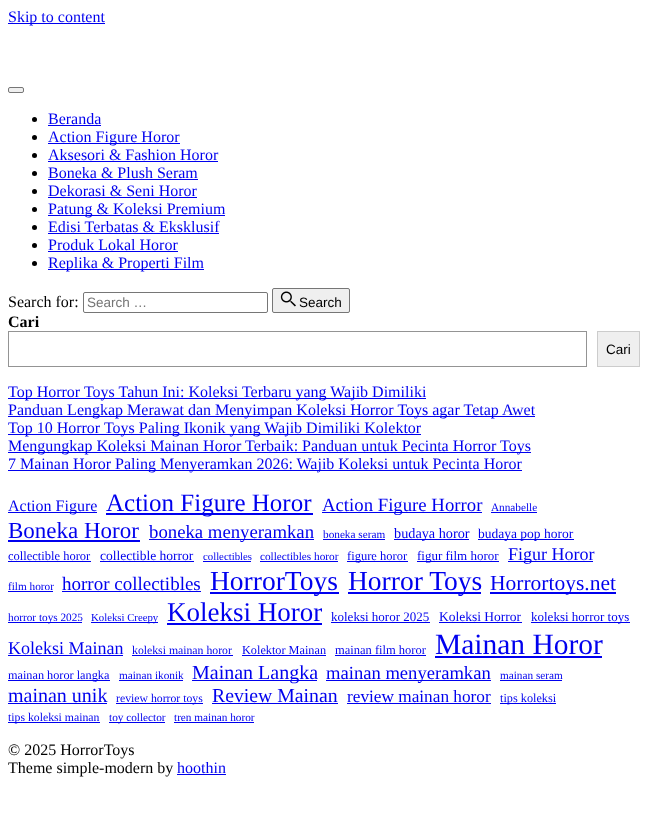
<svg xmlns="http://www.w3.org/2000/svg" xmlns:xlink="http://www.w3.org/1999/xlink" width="648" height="831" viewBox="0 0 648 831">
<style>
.cls-1{font:16px Liberation Serif;fill:#0000ee}
.cls-2{font:16px Liberation Serif;fill:#000000}
.cls-3{font:13.5px Liberation Sans;fill:#757575}
.cls-4{font:13.5px Liberation Sans;fill:#000000}
.cls-5{font:bold 16px Liberation Serif;fill:#000000}
.cls-6{font:25px Liberation Serif;fill:#0000ee}
.cls-7{font:18.75px Liberation Serif;fill:#0000ee}
.cls-8{font:11.25px Liberation Serif;fill:#0000ee}
.cls-9{font:23px Liberation Serif;fill:#0000ee}
.cls-10{font:14.25px Liberation Serif;fill:#0000ee}
.cls-11{font:13.5px Liberation Serif;fill:#0000ee}
.cls-12{font:12.5px Liberation Serif;fill:#0000ee}
.cls-13{font:10.75px Liberation Serif;fill:#0000ee}
.cls-14{font:13px Liberation Serif;fill:#0000ee}
.cls-15{font:18px Liberation Serif;fill:#0000ee}
.cls-16{font:19px Liberation Serif;fill:#0000ee}
.cls-17{font:27.5px Liberation Serif;fill:#0000ee}
.cls-18{font:21.5px Liberation Serif;fill:#0000ee}
.cls-19{font:27px Liberation Serif;fill:#0000ee}
.cls-20{font:11.75px Liberation Serif;fill:#0000ee}
.cls-21{font:12.25px Liberation Serif;fill:#0000ee}
.cls-22{font:29.5px Liberation Serif;fill:#0000ee}
.cls-23{font:20px Liberation Serif;fill:#0000ee}
.cls-24{font:18.6px Liberation Serif;fill:#0000ee}
.cls-25{font:19.75px Liberation Serif;fill:#0000ee}
.cls-26{font:17.25px Liberation Serif;fill:#0000ee}
</style>
<rect width="100%" height="100%" fill="#ffffff"/>
<rect fill="#0000ee" x="8" y="23" width="97" height="1"/>
<rect fill="#efefef" stroke="#767676" x="8.5" y="87.5" width="15" height="5" rx="1.5"/>
<circle fill="#000000" cx="34.5" cy="119.5" r="2.5"/>
<rect fill="#0000ee" x="48" y="125" width="53" height="1"/>
<circle fill="#000000" cx="34.5" cy="137.5" r="2.5"/>
<rect fill="#0000ee" x="48" y="143" width="132" height="1"/>
<circle fill="#000000" cx="34.5" cy="155.5" r="2.5"/>
<rect fill="#0000ee" x="48" y="161" width="170" height="1"/>
<circle fill="#000000" cx="34.5" cy="173.5" r="2.5"/>
<rect fill="#0000ee" x="48" y="179" width="150" height="1"/>
<circle fill="#000000" cx="34.5" cy="191.5" r="2.5"/>
<rect fill="#0000ee" x="48" y="197" width="149" height="1"/>
<circle fill="#000000" cx="34.5" cy="209.5" r="2.5"/>
<rect fill="#0000ee" x="48" y="215" width="177" height="1"/>
<circle fill="#000000" cx="34.5" cy="227.5" r="2.5"/>
<rect fill="#0000ee" x="48" y="233" width="171" height="1"/>
<circle fill="#000000" cx="34.5" cy="245.5" r="2.5"/>
<rect fill="#0000ee" x="48" y="251" width="130" height="1"/>
<circle fill="#000000" cx="34.5" cy="263.5" r="2.5"/>
<rect fill="#0000ee" x="48" y="269" width="156" height="1"/>
<rect fill="none" stroke="#767676" x="83.5" y="292.5" width="184" height="20" rx="1.5"/>
<rect fill="#efefef" stroke="#767676" x="272.5" y="288.5" width="77" height="24" rx="1.5"/>
<image xlink:href="image0.png" x="280" y="291" width="16" height="16"/>
<rect fill="none" stroke="#949494" x="8.5" y="331.5" width="578" height="35"/>
<rect fill="#efefef" stroke="#cccccc" x="597.5" y="331.5" width="42" height="35"/>
<rect fill="#0000ee" x="8" y="398" width="418" height="1"/>
<rect fill="#0000ee" x="8" y="416" width="527" height="1"/>
<rect fill="#0000ee" x="8" y="434" width="413" height="1"/>
<rect fill="#0000ee" x="8" y="452" width="523" height="1"/>
<rect fill="#0000ee" x="8" y="470" width="514" height="1"/>
<rect fill="#0000ee" x="8" y="512" width="89" height="1"/>
<rect fill="#0000ee" x="106" y="513" width="207" height="2"/>
<rect fill="#0000ee" x="322" y="512" width="160" height="1"/>
<rect fill="#0000ee" x="491" y="512" width="46" height="1"/>
<rect fill="#0000ee" x="8" y="540" width="132" height="2"/>
<rect fill="#0000ee" x="149" y="539" width="165" height="1"/>
<rect fill="#0000ee" x="323" y="539" width="62" height="1"/>
<rect fill="#0000ee" x="394" y="539" width="75" height="1"/>
<rect fill="#0000ee" x="478" y="539" width="96" height="1"/>
<rect fill="#0000ee" x="8" y="561" width="83" height="1"/>
<rect fill="#0000ee" x="100" y="561" width="94" height="1"/>
<rect fill="#0000ee" x="203" y="561" width="48" height="1"/>
<rect fill="#0000ee" x="260" y="561" width="78" height="1"/>
<rect fill="#0000ee" x="347" y="561" width="61" height="1"/>
<rect fill="#0000ee" x="417" y="561" width="82" height="1"/>
<rect fill="#0000ee" x="508" y="561" width="85" height="1"/>
<rect fill="#0000ee" x="8" y="591" width="45" height="1"/>
<rect fill="#0000ee" x="62" y="591" width="139" height="1"/>
<rect fill="#0000ee" x="210" y="592" width="129" height="2"/>
<rect fill="#0000ee" x="348" y="592" width="133" height="2"/>
<rect fill="#0000ee" x="490" y="592" width="126" height="2"/>
<rect fill="#0000ee" x="8" y="622" width="74" height="1"/>
<rect fill="#0000ee" x="91" y="622" width="67" height="1"/>
<rect fill="#0000ee" x="167" y="623" width="155" height="2"/>
<rect fill="#0000ee" x="331" y="622" width="99" height="1"/>
<rect fill="#0000ee" x="439" y="622" width="83" height="1"/>
<rect fill="#0000ee" x="531" y="622" width="99" height="1"/>
<rect fill="#0000ee" x="8" y="655" width="115" height="1"/>
<rect fill="#0000ee" x="132" y="655" width="101" height="1"/>
<rect fill="#0000ee" x="242" y="655" width="84" height="1"/>
<rect fill="#0000ee" x="335" y="655" width="91" height="1"/>
<rect fill="#0000ee" x="435" y="656" width="167" height="2"/>
<rect fill="#0000ee" x="8" y="680" width="102" height="1"/>
<rect fill="#0000ee" x="119" y="680" width="64" height="1"/>
<rect fill="#0000ee" x="192" y="680" width="125" height="1"/>
<rect fill="#0000ee" x="326" y="680" width="165" height="1"/>
<rect fill="#0000ee" x="500" y="680" width="62" height="1"/>
<rect fill="#0000ee" x="8" y="703" width="99" height="1"/>
<rect fill="#0000ee" x="116" y="703" width="87" height="1"/>
<rect fill="#0000ee" x="212" y="703" width="126" height="1"/>
<rect fill="#0000ee" x="347" y="703" width="144" height="1"/>
<rect fill="#0000ee" x="500" y="703" width="56" height="1"/>
<rect fill="#0000ee" x="8" y="722" width="92" height="1"/>
<rect fill="#0000ee" x="109" y="722" width="56" height="1"/>
<rect fill="#0000ee" x="174" y="722" width="80" height="1"/>
<rect fill="#0000ee" x="177" y="774" width="49" height="1"/>
<text class="cls-1" x="8" y="22">Skip to content</text>
<text class="cls-1"><tspan x="48" y="124">Beranda</tspan><tspan x="48" y="142">Action Figure Horor</tspan><tspan x="48" y="160">Aksesori &amp; Fashion Horor</tspan><tspan x="48" y="178">Boneka &amp; Plush Seram</tspan><tspan x="48" y="196">Dekorasi &amp; Seni Horor</tspan><tspan x="48" y="214">Patung &amp; Koleksi Premium</tspan><tspan x="48" y="232">Edisi Terbatas &amp; Eksklusif</tspan><tspan x="48" y="250">Produk Lokal Horor</tspan><tspan x="48" y="268">Replika &amp; Properti Film</tspan></text>
<text class="cls-2" x="8" y="307">Search for:</text>
<text class="cls-3" x="87" y="307">Search …</text>
<text class="cls-4" x="299" y="307">Search</text>
<text class="cls-5" x="8" y="327">Cari</text>
<text class="cls-4" x="606" y="354">Cari</text>
<text class="cls-1"><tspan x="8" y="397">Top Horror Toys Tahun Ini: Koleksi Terbaru yang Wajib Dimiliki</tspan><tspan x="8" y="415">Panduan Lengkap Merawat dan Menyimpan Koleksi Horror Toys agar Tetap Awet</tspan><tspan x="8" y="433">Top 10 Horror Toys Paling Ikonik yang Wajib Dimiliki Kolektor</tspan><tspan x="8" y="451">Mengungkap Koleksi Mainan Horor Terbaik: Panduan untuk Pecinta Horror Toys</tspan><tspan x="8" y="469">7 Mainan Horor Paling Menyeramkan 2026: Wajib Koleksi untuk Pecinta Horor</tspan></text>
<text class="cls-1" x="8" y="511">Action Figure</text>
<text class="cls-6" x="106" y="511">Action Figure Horor</text>
<text class="cls-7" x="322" y="511">Action Figure Horror</text>
<text class="cls-8" x="491" y="511">Annabelle</text>
<text class="cls-9" x="8" y="538">Boneka Horor</text>
<text class="cls-7" x="149" y="538">boneka menyeramkan</text>
<text class="cls-8" x="323" y="538">boneka seram</text>
<text class="cls-10" x="394" y="538">budaya horor</text>
<text class="cls-11" x="478" y="538">budaya pop horor</text>
<text class="cls-12" x="8" y="560">collectible horor</text>
<text class="cls-11" x="100" y="560">collectible horror</text>
<text class="cls-13" x="203" y="560">collectibles</text>
<text class="cls-8" x="260" y="560">collectibles horor</text>
<text class="cls-12" x="347" y="560">figure horor</text>
<text class="cls-14" x="417" y="560">figur film horor</text>
<text class="cls-15" x="508" y="560">Figur Horor</text>
<text class="cls-8" x="8" y="590">film horor</text>
<text class="cls-16" x="62" y="590">horror collectibles</text>
<text class="cls-17" x="210" y="590">HorrorToys</text>
<text class="cls-17" x="348" y="590">Horror Toys</text>
<text class="cls-18" x="490" y="590">Horrortoys.net</text>
<text class="cls-8" x="8" y="621">horror toys 2025</text>
<text class="cls-13" x="91" y="621">Koleksi Creepy</text>
<text class="cls-19" x="167" y="621">Koleksi Horor</text>
<text class="cls-14" x="331" y="621">koleksi horor 2025</text>
<text class="cls-11" x="439" y="621">Koleksi Horror</text>
<text class="cls-14" x="531" y="621">koleksi horror toys</text>
<text class="cls-15" x="8" y="654">Koleksi Mainan</text>
<text class="cls-20" x="132" y="654">koleksi mainan horor</text>
<text class="cls-21" x="242" y="654">Kolektor Mainan</text>
<text class="cls-12" x="335" y="654">mainan film horor</text>
<text class="cls-22" x="435" y="654">Mainan Horor</text>
<text class="cls-21" x="8" y="679">mainan horor langka</text>
<text class="cls-8" x="119" y="679">mainan ikonik</text>
<text class="cls-23" x="192" y="679">Mainan Langka</text>
<text class="cls-24" x="326" y="679">mainan menyeramkan</text>
<text class="cls-8" x="500" y="679">mainan seram</text>
<text class="cls-23" x="8" y="702">mainan unik</text>
<text class="cls-20" x="116" y="702">review horror toys</text>
<text class="cls-25" x="212" y="702">Review Mainan</text>
<text class="cls-26" x="347" y="702">review mainan horor</text>
<text class="cls-21" x="500" y="702">tips koleksi</text>
<text class="cls-20" x="8" y="721">tips koleksi mainan</text>
<text class="cls-8" x="109" y="721">toy collector</text>
<text class="cls-8" x="174" y="721">tren mainan horor</text>
<text class="cls-2"><tspan x="8" y="755">© 2025 HorrorToys</tspan><tspan x="8" y="773">Theme simple-modern by</tspan></text>
<text class="cls-1" x="177" y="773">hoothin</text>
</svg>
